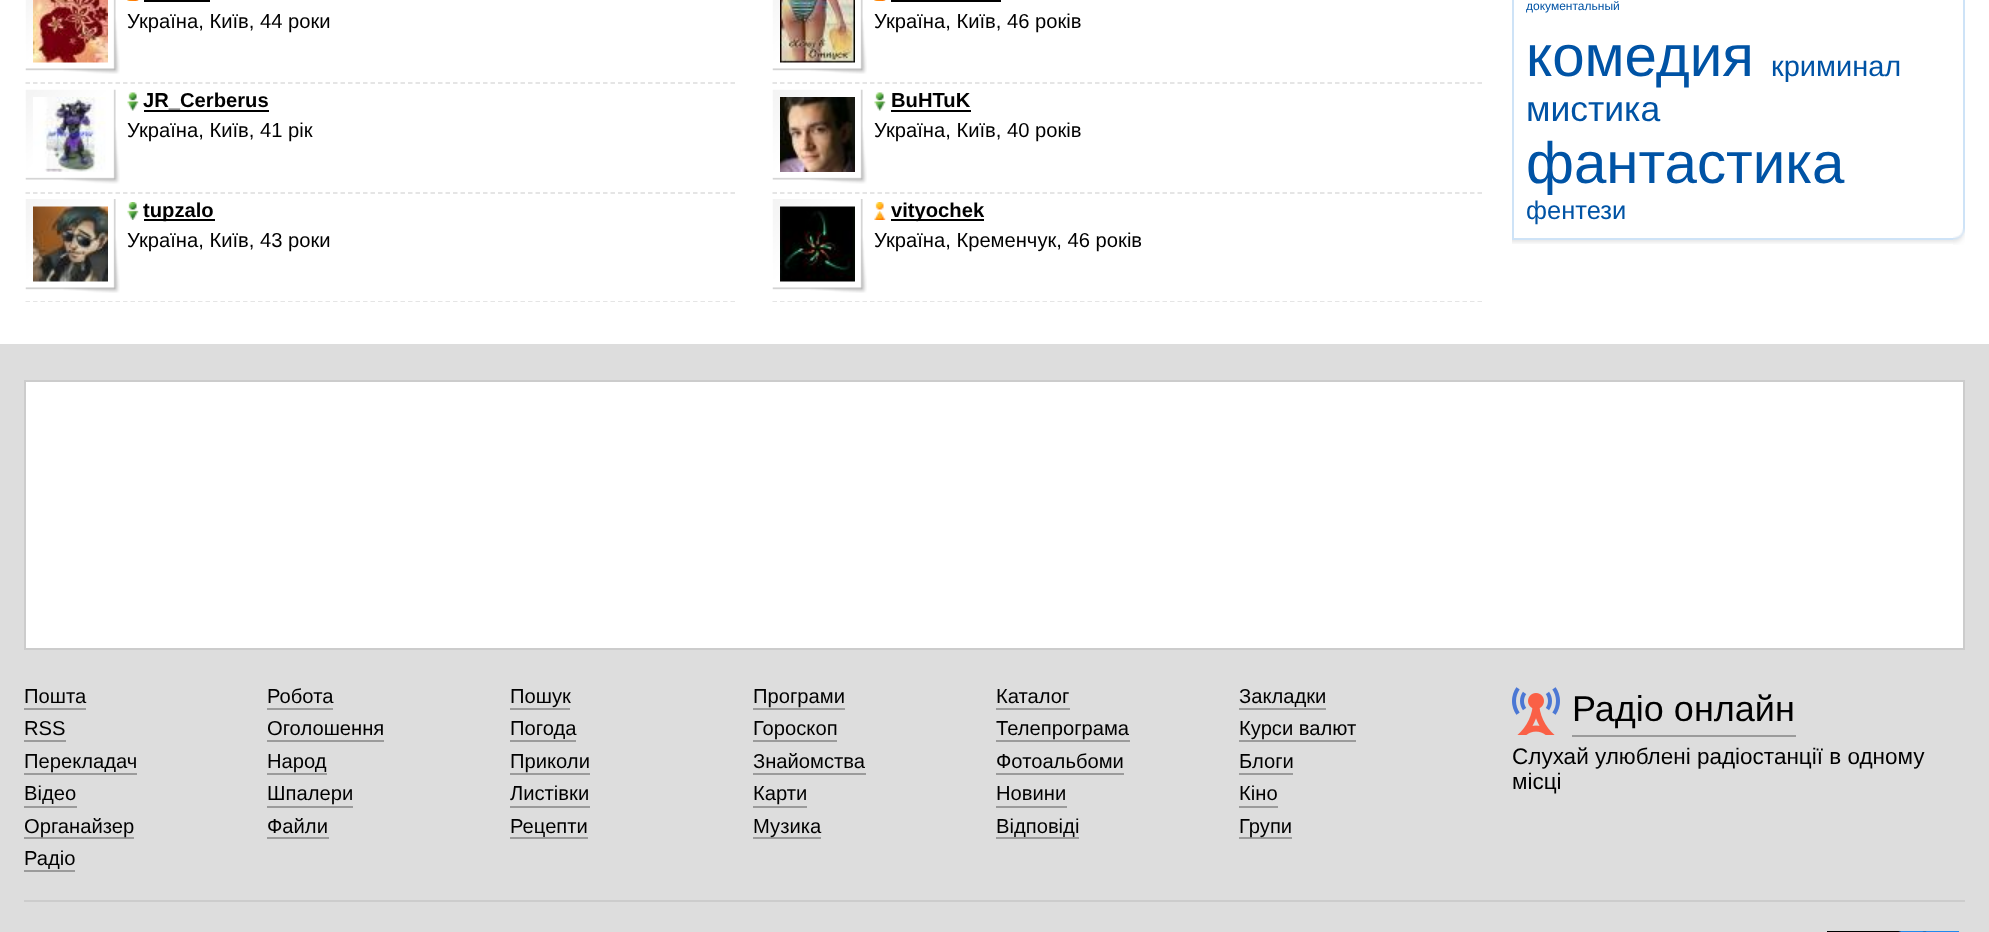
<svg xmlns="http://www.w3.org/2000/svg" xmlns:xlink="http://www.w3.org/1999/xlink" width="1989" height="932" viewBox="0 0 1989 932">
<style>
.cls-1{font:20.2px Liberation Sans;fill:#000000}
.cls-2{font:bold 20.2px Liberation Sans;fill:#000000}
.cls-3{font:12px Liberation Sans;fill:#0053a5}
.cls-4{font:58.25px Liberation Sans;fill:#0053a5}
.cls-5{font:29px Liberation Sans;fill:#0053a5}
.cls-6{font:35.5px Liberation Sans;fill:#0053a5}
.cls-7{font:25.5px Liberation Sans;fill:#0053a5}
.cls-8{font:36px Liberation Sans;fill:#000000}
.cls-9{font:22.5px Liberation Sans;fill:#000000}
</style>
<defs>
<clipPath id="clip1"><rect x="0" y="0" width="1488" height="302"/></clipPath>
<clipPath id="clip2"><rect x="1526" y="0" width="426" height="227"/></clipPath>
</defs>
<rect width="100%" height="100%" fill="#ffffff"/>
<path fill="none" stroke="#dddddd" stroke-width="1.5" stroke-dasharray="4.5 3" d="M25.5 83H735"/>
<image xlink:href="image0.png" x="25" y="0" width="95" height="74"/>
<image xlink:href="image1.png" x="33" y="0" width="75" height="63"/>
<image xlink:href="image2.png" x="127" y="0" width="12" height="1"/>
<rect fill="#000000" x="144" y="0" width="66" height="2"/>
<path fill="none" stroke="#dddddd" stroke-width="1.5" stroke-dasharray="4.5 3" d="M772.5 83H1482"/>
<image xlink:href="image0.png" x="772" y="0" width="95" height="74"/>
<image xlink:href="image3.png" x="780" y="0" width="75" height="63"/>
<image xlink:href="image2.png" x="874" y="0" width="12" height="1"/>
<rect fill="#000000" x="891" y="0" width="110" height="2"/>
<path fill="none" stroke="#dddddd" stroke-width="1.5" stroke-dasharray="4.5 3" d="M25.5 193H735"/>
<image xlink:href="image4.png" x="25" y="89" width="95" height="95"/>
<image xlink:href="image5.png" x="33" y="97" width="73" height="75"/>
<image xlink:href="image6.png" x="127" y="92" width="12" height="19"/>
<rect fill="#000000" x="144" y="110" width="125" height="2"/>
<path fill="none" stroke="#dddddd" stroke-width="1.5" stroke-dasharray="4.5 3" d="M772.5 193H1482"/>
<image xlink:href="image4.png" x="772" y="89" width="95" height="95"/>
<image xlink:href="image7.png" x="780" y="97" width="75" height="75"/>
<image xlink:href="image6.png" x="874" y="92" width="12" height="19"/>
<rect fill="#000000" x="891" y="110" width="80" height="2"/>
<g clip-path="url(#clip1)">
<path fill="none" stroke="#dddddd" stroke-width="1.5" stroke-dasharray="4.5 3" d="M25.5 302H735"/>
</g>
<image xlink:href="image8.png" x="25" y="199" width="95" height="94"/>
<image xlink:href="image9.png" x="33" y="206" width="75" height="76"/>
<image xlink:href="image10.png" x="127" y="202" width="12" height="18"/>
<rect fill="#000000" x="144" y="219" width="71" height="2"/>
<g clip-path="url(#clip1)">
<path fill="none" stroke="#dddddd" stroke-width="1.5" stroke-dasharray="4.5 3" d="M772.5 302H1482"/>
</g>
<image xlink:href="image8.png" x="772" y="199" width="95" height="94"/>
<image xlink:href="image11.png" x="780" y="206" width="75" height="76"/>
<image xlink:href="image12.png" x="874" y="202" width="12" height="18"/>
<rect fill="#000000" x="891" y="219" width="93" height="2"/>
<image xlink:href="image13.png" x="1512" y="240" width="441" height="4"/>
<rect fill="none" stroke="#cee3f7" stroke-width="2" x="1513" y="-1" width="451" height="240"/>
<image xlink:href="image14.png" x="1953" y="228" width="12" height="17"/>
<rect fill="#dddddd" x="0" y="344" width="1989" height="588"/>
<rect fill="#ffffff" stroke="#cccccc" stroke-width="2" x="25" y="381" width="1939" height="268"/>
<rect fill="#9b9b9b" x="24" y="708" width="62" height="2"/>
<rect fill="#9b9b9b" x="267" y="708" width="66" height="2"/>
<rect fill="#9b9b9b" x="510" y="708" width="60" height="2"/>
<rect fill="#9b9b9b" x="753" y="708" width="92" height="2"/>
<rect fill="#9b9b9b" x="996" y="708" width="74" height="2"/>
<rect fill="#9b9b9b" x="1239" y="708" width="87" height="2"/>
<rect fill="#9b9b9b" x="24" y="740" width="42" height="2"/>
<rect fill="#9b9b9b" x="267" y="740" width="117" height="2"/>
<rect fill="#9b9b9b" x="510" y="740" width="66" height="2"/>
<rect fill="#9b9b9b" x="753" y="740" width="84" height="2"/>
<rect fill="#9b9b9b" x="996" y="740" width="134" height="2"/>
<rect fill="#9b9b9b" x="1239" y="740" width="117" height="2"/>
<rect fill="#9b9b9b" x="24" y="773" width="113" height="2"/>
<rect fill="#9b9b9b" x="267" y="773" width="60" height="2"/>
<rect fill="#9b9b9b" x="510" y="773" width="80" height="2"/>
<rect fill="#9b9b9b" x="753" y="773" width="113" height="2"/>
<rect fill="#9b9b9b" x="996" y="773" width="128" height="2"/>
<rect fill="#9b9b9b" x="1239" y="773" width="54" height="2"/>
<rect fill="#9b9b9b" x="24" y="806" width="53" height="2"/>
<rect fill="#9b9b9b" x="267" y="806" width="86" height="2"/>
<rect fill="#9b9b9b" x="510" y="806" width="80" height="2"/>
<rect fill="#9b9b9b" x="753" y="806" width="54" height="2"/>
<rect fill="#9b9b9b" x="996" y="806" width="71" height="2"/>
<rect fill="#9b9b9b" x="1239" y="806" width="39" height="2"/>
<rect fill="#9b9b9b" x="24" y="837" width="110" height="2"/>
<rect fill="#9b9b9b" x="267" y="837" width="62" height="2"/>
<rect fill="#9b9b9b" x="510" y="837" width="78" height="2"/>
<rect fill="#9b9b9b" x="753" y="837" width="68" height="2"/>
<rect fill="#9b9b9b" x="996" y="837" width="83" height="2"/>
<rect fill="#9b9b9b" x="1239" y="837" width="53" height="2"/>
<rect fill="#9b9b9b" x="24" y="870" width="51" height="2"/>
<rect fill="#9b9b9b" x="1572" y="735" width="224" height="2"/>
<image xlink:href="image15.png" x="1512" y="687" width="48" height="48"/>
<rect fill="#cccccc" x="24" y="900" width="1941" height="2"/>
<image xlink:href="image16.png" x="1827" y="931" width="132" height="1"/>
<text class="cls-1" x="127" y="28">Україна, Київ, 44 роки</text>
<text class="cls-1" x="874" y="28">Україна, Київ, 46 років</text>
<text class="cls-2" x="143" y="107">JR_Cerberus</text>
<text class="cls-1" x="127" y="137">Україна, Київ, 41 рік</text>
<text class="cls-2" x="891" y="107">BuHTuK</text>
<text class="cls-1" x="874" y="137">Україна, Київ, 40 років</text>
<text class="cls-2" x="143" y="217">tupzalo</text>
<text class="cls-1" x="127" y="247">Україна, Київ, 43 роки</text>
<text class="cls-2" x="891" y="217">vityochek</text>
<text class="cls-1" x="874" y="247">Україна, Кременчук, 46 років</text>
<g clip-path="url(#clip2)">
<text class="cls-3" x="1526" y="10">документальный</text>
</g>
<text class="cls-4" x="1526" y="76">комедия</text>
<text class="cls-5" x="1771" y="76">криминал</text>
<text class="cls-6" x="1526" y="121">мистика</text>
<text class="cls-4" x="1526" y="183">фантастика</text>
<text class="cls-7" x="1526" y="219">фентези</text>
<text class="cls-1" x="24" y="703">Пошта</text>
<text class="cls-1" x="267" y="703">Робота</text>
<text class="cls-1" x="510" y="703">Пошук</text>
<text class="cls-1" x="753" y="703">Програми</text>
<text class="cls-1" x="996" y="703">Каталог</text>
<text class="cls-1" x="1239" y="703">Закладки</text>
<text class="cls-1" x="24" y="735">RSS</text>
<text class="cls-1" x="267" y="735">Оголошення</text>
<text class="cls-1" x="510" y="735">Погода</text>
<text class="cls-1" x="753" y="735">Гороскоп</text>
<text class="cls-1" x="996" y="735">Телепрограма</text>
<text class="cls-1" x="1239" y="735">Курси валют</text>
<text class="cls-1" x="24" y="768">Перекладач</text>
<text class="cls-1" x="267" y="768">Народ</text>
<text class="cls-1" x="510" y="768">Приколи</text>
<text class="cls-1" x="753" y="768">Знайомства</text>
<text class="cls-1" x="996" y="768">Фотоальбоми</text>
<text class="cls-1" x="1239" y="768">Блоги</text>
<text class="cls-1" x="24" y="800">Відео</text>
<text class="cls-1" x="267" y="800">Шпалери</text>
<text class="cls-1" x="510" y="800">Листівки</text>
<text class="cls-1" x="753" y="800">Карти</text>
<text class="cls-1" x="996" y="800">Новини</text>
<text class="cls-1" x="1239" y="800">Кіно</text>
<text class="cls-1" x="24" y="833">Органайзер</text>
<text class="cls-1" x="267" y="833">Файли</text>
<text class="cls-1" x="510" y="833">Рецепти</text>
<text class="cls-1" x="753" y="833">Музика</text>
<text class="cls-1" x="996" y="833">Відповіді</text>
<text class="cls-1" x="1239" y="833">Групи</text>
<text class="cls-1" x="24" y="865">Радіо</text>
<text class="cls-8" x="1572" y="721">Радіо онлайн</text>
<text class="cls-9"><tspan x="1512" y="764">Слухай улюблені радіостанції в одному</tspan><tspan x="1512" y="789">місці</tspan></text>
</svg>
